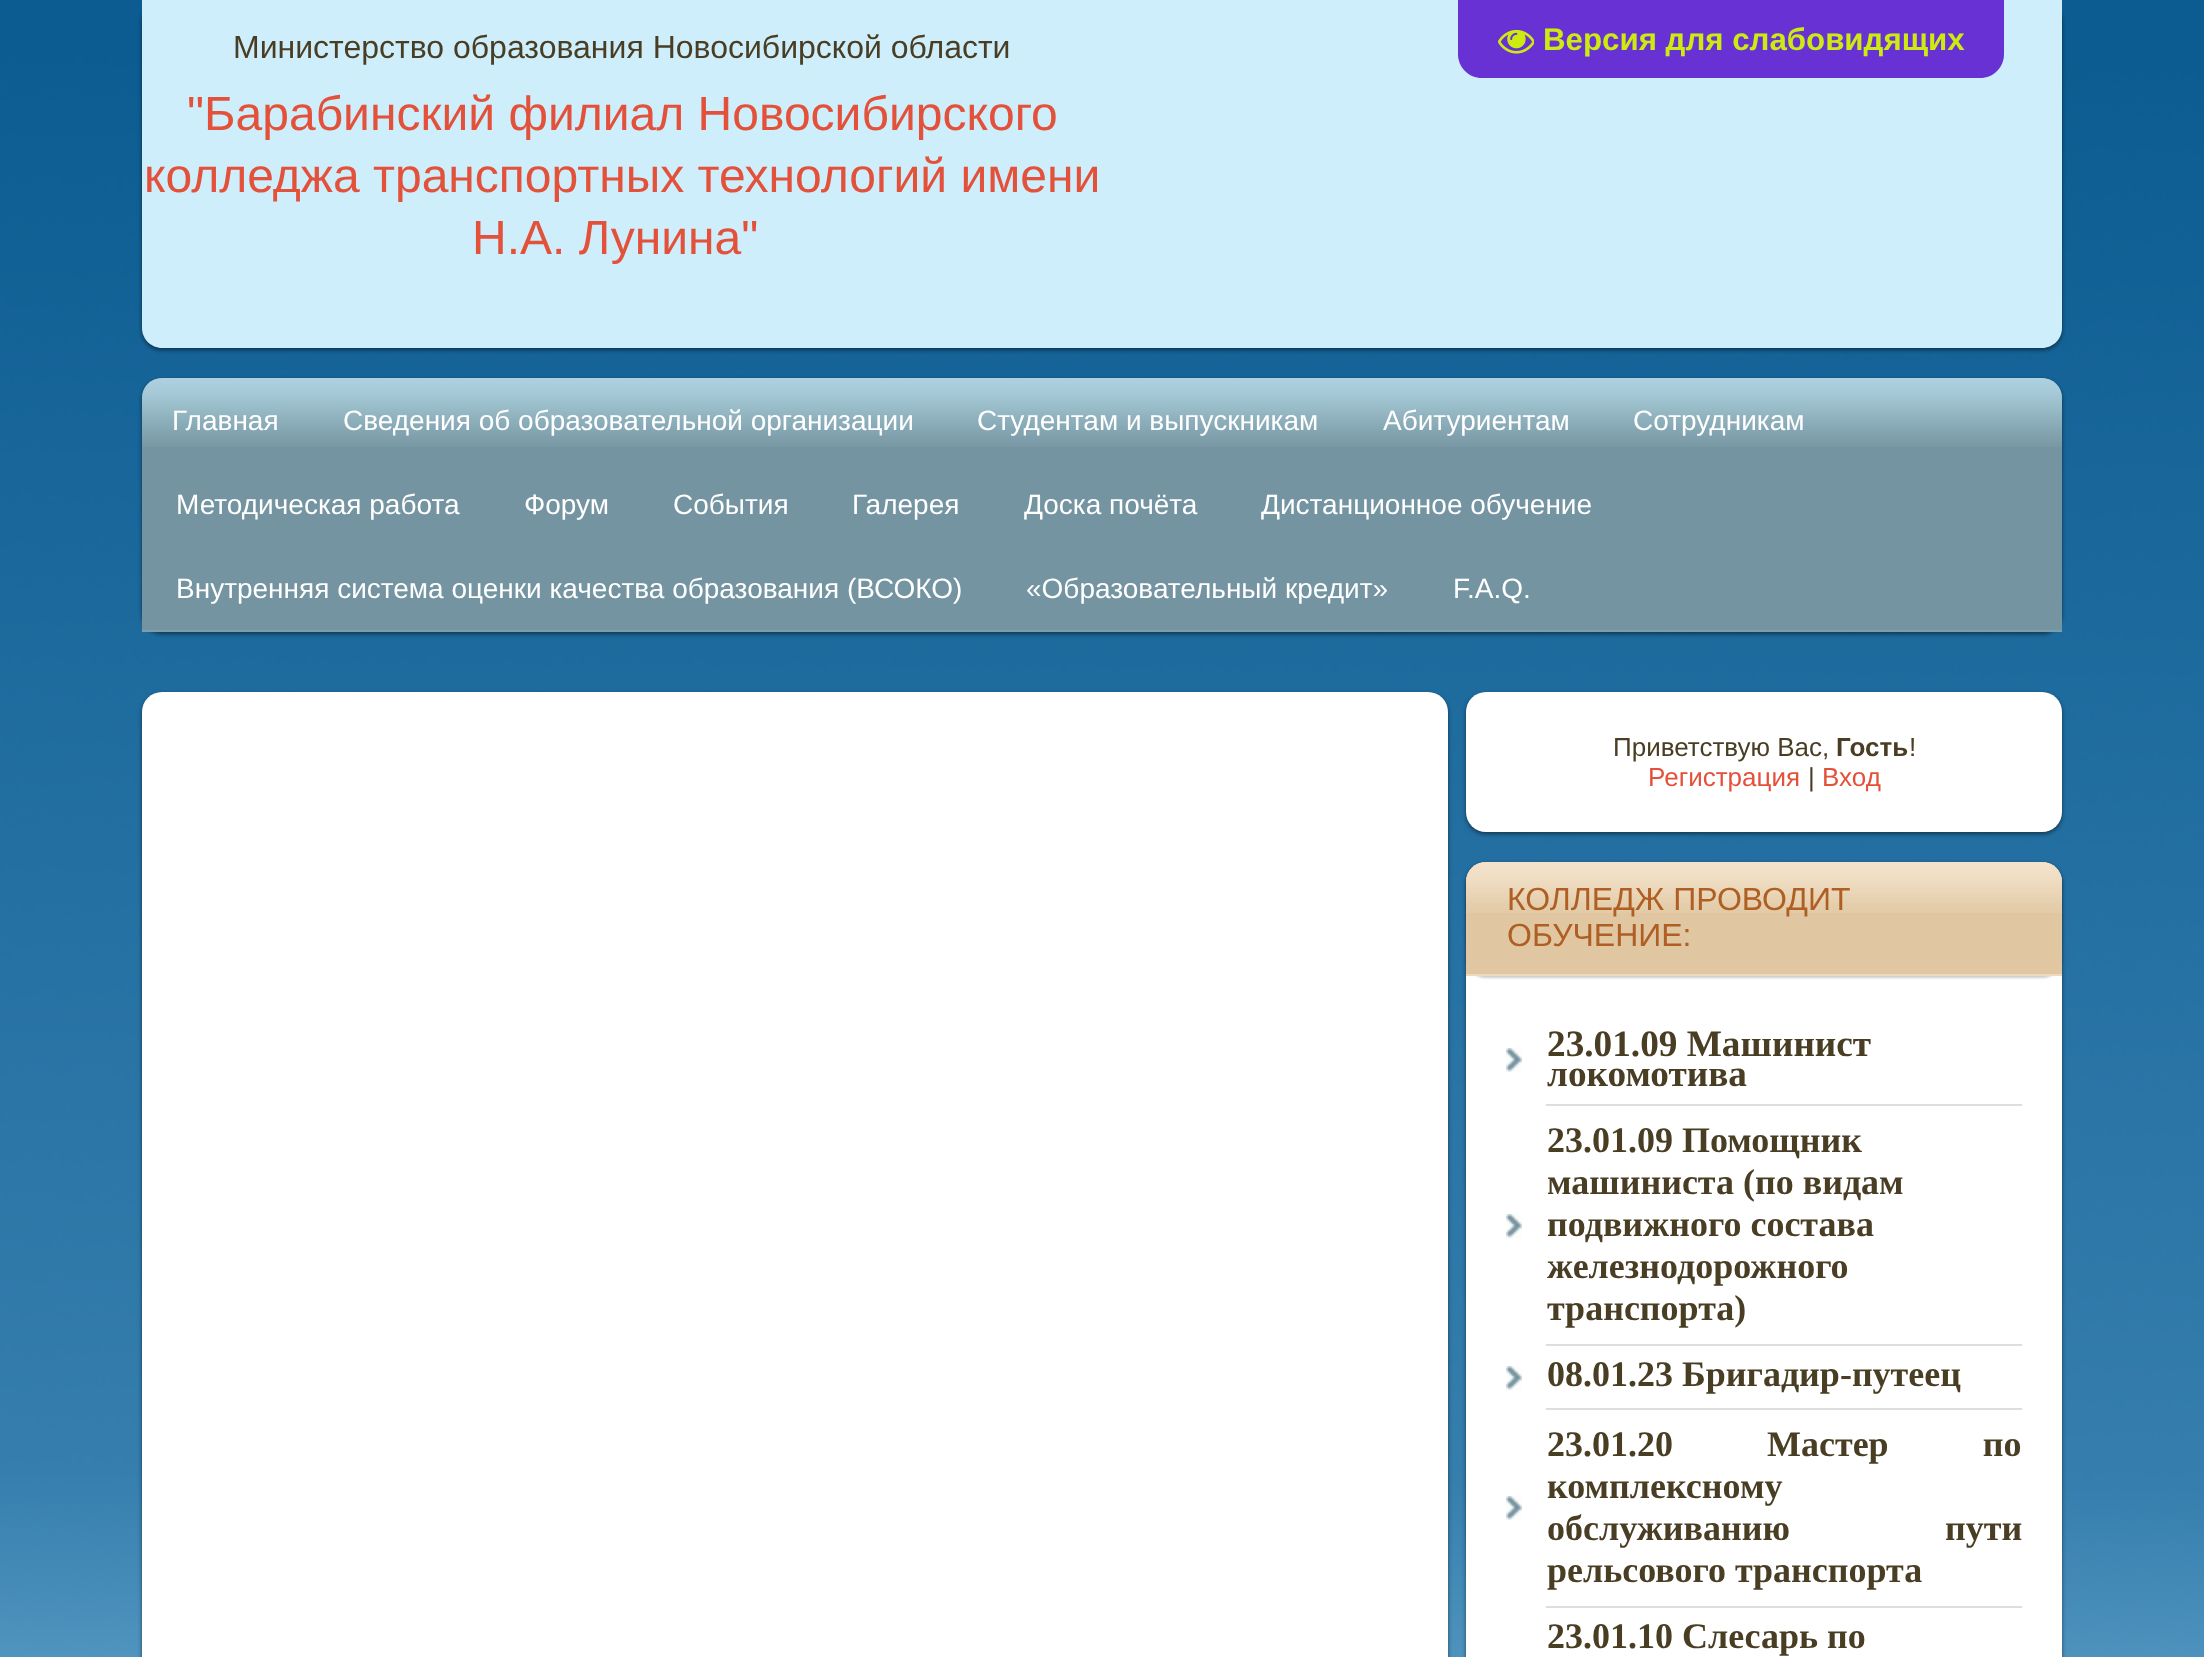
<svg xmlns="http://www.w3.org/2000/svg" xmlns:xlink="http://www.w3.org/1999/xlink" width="2204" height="1657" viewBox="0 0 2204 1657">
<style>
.cls-1{font:bold 31.25px Liberation Sans;fill:#ceeb11}
.cls-2{font:32px Liberation Sans;fill:#493e24}
.cls-3{font:48px Liberation Sans;fill:#e4513a}
.cls-4{font:28px Liberation Sans;fill:#ffffff}
.cls-5{font:26px Liberation Sans;fill:#493e24}
.cls-6{font:bold 26px Liberation Sans;fill:#493e24}
.cls-7{font:26px Liberation Sans;fill:#e4513a}
.cls-8{font:32px Liberation Sans;fill:#af5f24}
.cls-9{font:bold 37.25px Liberation Serif;fill:#493e24}
.cls-10{font:bold 36px Liberation Serif;fill:#493e24}
</style>
<rect width="100%" height="100%" fill="#ffffff"/>
<image xlink:href="image0.png" x="0" y="0" width="2204" height="1657"/>
<rect fill="#000000" fill-opacity="0.5" filter="blur(2px)" x="142" y="2" width="1920" height="348" rx="20"/>
<path fill="#cdeefa" d="M142 0H2062V328C2062 339 2053 348 2042 348H162C151 348 142 339 142 328Z"/>
<path fill="#6731d4" d="M1458 0H2004V54C2004 67.5 1993.5 78 1980 78H1482C1468.5 78 1458 67.5 1458 54Z"/>
<image xlink:href="image1.png" x="1498" y="29" width="36" height="25"/>
<rect fill="#000000" fill-opacity="0.5" filter="blur(2px)" x="142" y="380" width="1920" height="254" rx="20"/>
<path fill="#7394a0" d="M162 378H2042C2053 378 2062 387 2062 398V632H142V398C142 387 151 378 162 378Z"/>
<image xlink:href="image2.png" x="142" y="378" width="1920" height="69"/>
<rect fill="#7a9eab" x="142" y="630" width="1920" height="2"/>
<rect fill="#000000" fill-opacity="0.5" filter="blur(2px)" x="142" y="694" width="1306" height="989" rx="20"/>
<rect fill="#ffffff" x="142" y="692" width="1306" height="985" rx="20"/>
<rect fill="#000000" fill-opacity="0.5" filter="blur(2px)" x="1466" y="694" width="596" height="140" rx="20"/>
<rect fill="#ffffff" x="1466" y="692" width="596" height="140" rx="20"/>
<rect fill="#000000" fill-opacity="0.5" filter="blur(2px)" x="1466" y="864" width="596" height="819" rx="20"/>
<rect fill="#ffffff" x="1466" y="862" width="596" height="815" rx="20"/>
<rect fill="#000000" fill-opacity="0.2" filter="blur(1px)" x="1466" y="864" width="596" height="114" rx="20"/>
<path fill="#e0c7a2" d="M1486 862H2042C2053 862 2062 871 2062 882V976H1466V882C1466 871 1475 862 1486 862Z"/>
<image xlink:href="image3.png" x="1466" y="862" width="596" height="51"/>
<rect fill="#eddabe" x="1466" y="974" width="596" height="2"/>
<image xlink:href="image4.png" x="1506" y="1048" width="16" height="24"/>
<rect fill="#dedede" x="1546" y="1104" width="476" height="2"/>
<image xlink:href="image4.png" x="1506" y="1214" width="16" height="24"/>
<rect fill="#dedede" x="1546" y="1344" width="476" height="2"/>
<image xlink:href="image4.png" x="1506" y="1366" width="16" height="24"/>
<rect fill="#dedede" x="1546" y="1408" width="476" height="2"/>
<image xlink:href="image4.png" x="1506" y="1496" width="16" height="24"/>
<rect fill="#dedede" x="1546" y="1606" width="476" height="2"/>
<text class="cls-1" x="1543" y="50">Версия для слабовидящих</text>
<text class="cls-2" x="233" y="58">Министерство образования Новосибирской области</text>
<text class="cls-3" x="187" y="130">"Барабинский филиал Новосибирского</text>
<text class="cls-3" x="144" y="192">колледжа транспортных технологий имени</text>
<text class="cls-3" x="472" y="254">Н.А. Лунина"</text>
<text class="cls-4" x="172" y="430">Главная</text>
<text class="cls-4" x="343" y="430">Сведения об образовательной организации</text>
<text class="cls-4" x="977" y="430">Студентам и выпускникам</text>
<text class="cls-4" x="1383" y="430">Абитуриентам</text>
<text class="cls-4" x="1633" y="430">Сотрудникам</text>
<text class="cls-4" x="176" y="514">Методическая работа</text>
<text class="cls-4" x="524" y="514">Форум</text>
<text class="cls-4" x="673" y="514">События</text>
<text class="cls-4" x="852" y="514">Галерея</text>
<text class="cls-4" x="1024" y="514">Доска почёта</text>
<text class="cls-4" x="1261" y="514">Дистанционное обучение</text>
<text class="cls-4" x="176" y="598">Внутренняя система оценки качества образования (ВСОКО)</text>
<text class="cls-4" x="1026" y="598">«Образовательный кредит»</text>
<text class="cls-4" x="1453" y="598">F.A.Q.</text>
<text class="cls-5" x="1613" y="756">Приветствую Вас,</text>
<text class="cls-6" x="1836" y="756">Гость</text>
<text class="cls-5" x="1909" y="756">!</text>
<text class="cls-7" x="1648" y="786">Регистрация</text>
<text class="cls-5" x="1808" y="786">|</text>
<text class="cls-7" x="1822" y="786">Вход</text>
<text class="cls-8"><tspan x="1507" y="910">КОЛЛЕДЖ ПРОВОДИТ</tspan><tspan x="1507" y="946">ОБУЧЕНИЕ:</tspan></text>
<text class="cls-9"><tspan x="1547" y="1056">23.01.09 Машинист</tspan><tspan x="1547" y="1086">локомотива</tspan></text>
<text class="cls-10"><tspan x="1547" y="1152">23.01.09 Помощник</tspan><tspan x="1547" y="1194">машиниста (по видам</tspan><tspan x="1547" y="1236">подвижного состава</tspan><tspan x="1547" y="1278">железнодорожного</tspan><tspan x="1547" y="1320">транспорта)</tspan><tspan x="1547" y="1386">08.01.23 Бригадир-путеец</tspan><tspan x="1547" y="1456" word-spacing="85">23.01.20 Мастер по</tspan><tspan x="1547" y="1498">комплексному</tspan><tspan x="1547" y="1540" word-spacing="146">обслуживанию пути</tspan><tspan x="1547" y="1582">рельсового транспорта</tspan><tspan x="1547" y="1648">23.01.10 Слесарь по</tspan></text>
</svg>
